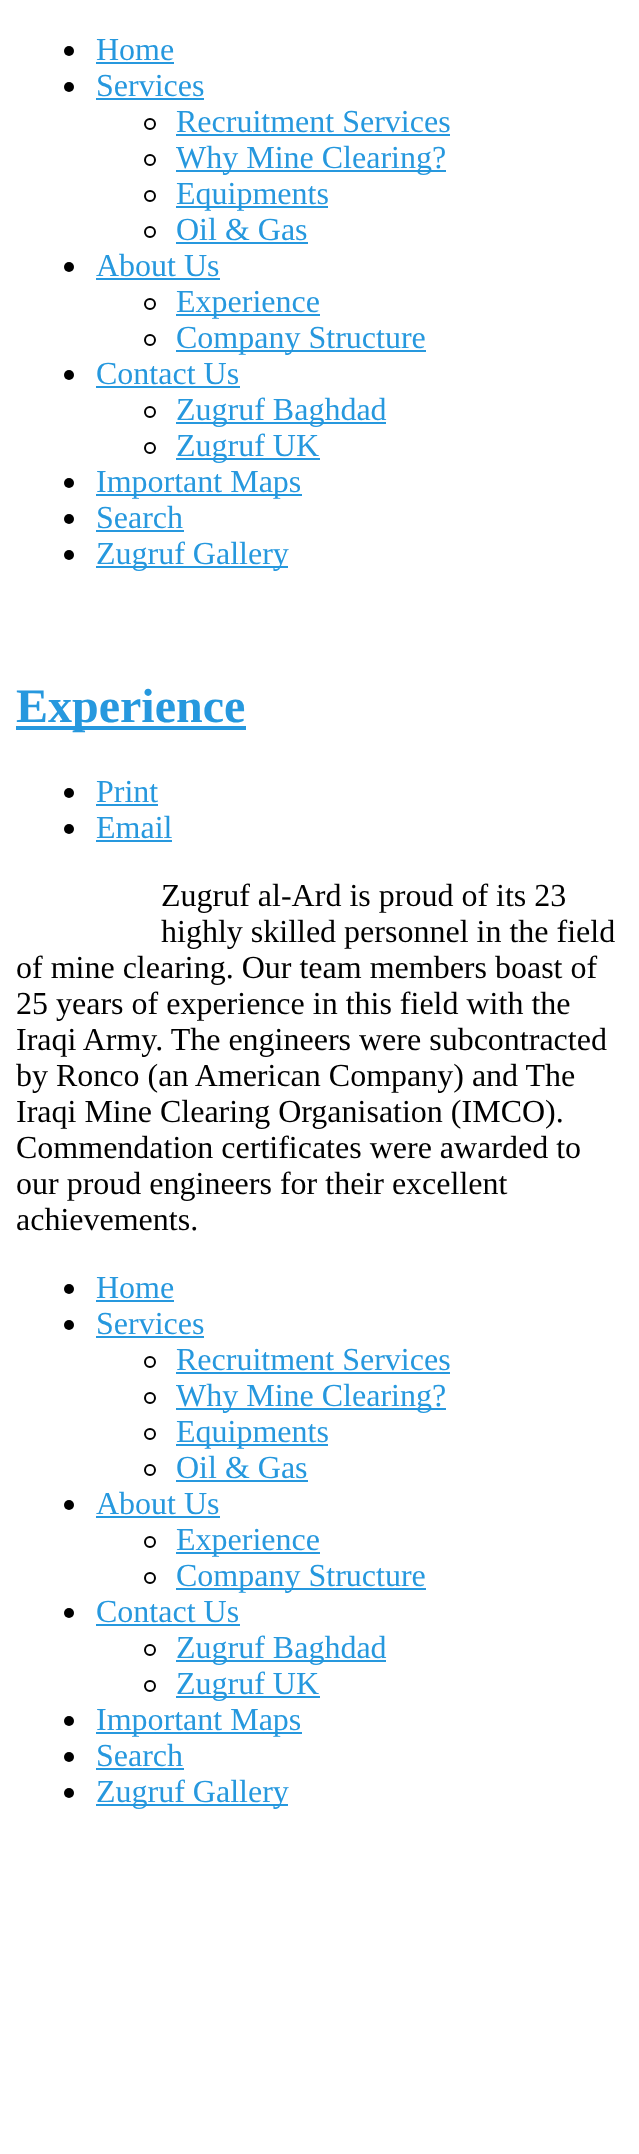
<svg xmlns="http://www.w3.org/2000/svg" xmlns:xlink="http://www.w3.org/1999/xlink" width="639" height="2154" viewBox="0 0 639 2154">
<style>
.cls-1{font:32px Liberation Serif;fill:#2698de}
.cls-2{font:bold 48px Liberation Serif;fill:#2698de}
.cls-3{font:32px Liberation Serif;fill:#000000}
</style>
<rect width="100%" height="100%" fill="#ffffff"/>
<circle fill="#000000" cx="69" cy="51" r="5"/>
<rect fill="#2698de" x="96" y="62" width="78" height="2"/>
<circle fill="#000000" cx="69" cy="87" r="5"/>
<rect fill="#2698de" x="96" y="98" width="108" height="2"/>
<circle fill="none" stroke="#000000" stroke-width="2" cx="150" cy="124" r="5"/>
<rect fill="#2698de" x="176" y="134" width="274" height="2"/>
<circle fill="none" stroke="#000000" stroke-width="2" cx="150" cy="160" r="5"/>
<rect fill="#2698de" x="176" y="170" width="270" height="2"/>
<circle fill="none" stroke="#000000" stroke-width="2" cx="150" cy="196" r="5"/>
<rect fill="#2698de" x="176" y="206" width="152" height="2"/>
<circle fill="none" stroke="#000000" stroke-width="2" cx="150" cy="232" r="5"/>
<rect fill="#2698de" x="176" y="242" width="132" height="2"/>
<circle fill="#000000" cx="69" cy="267" r="5"/>
<rect fill="#2698de" x="96" y="278" width="124" height="2"/>
<circle fill="none" stroke="#000000" stroke-width="2" cx="150" cy="304" r="5"/>
<rect fill="#2698de" x="176" y="314" width="144" height="2"/>
<circle fill="none" stroke="#000000" stroke-width="2" cx="150" cy="340" r="5"/>
<rect fill="#2698de" x="176" y="350" width="250" height="2"/>
<circle fill="#000000" cx="69" cy="375" r="5"/>
<rect fill="#2698de" x="96" y="386" width="144" height="2"/>
<circle fill="none" stroke="#000000" stroke-width="2" cx="150" cy="412" r="5"/>
<rect fill="#2698de" x="176" y="422" width="210" height="2"/>
<circle fill="none" stroke="#000000" stroke-width="2" cx="150" cy="448" r="5"/>
<rect fill="#2698de" x="176" y="458" width="144" height="2"/>
<circle fill="#000000" cx="69" cy="483" r="5"/>
<rect fill="#2698de" x="96" y="494" width="206" height="2"/>
<circle fill="#000000" cx="69" cy="519" r="5"/>
<rect fill="#2698de" x="96" y="530" width="88" height="2"/>
<circle fill="#000000" cx="69" cy="555" r="5"/>
<rect fill="#2698de" x="96" y="566" width="192" height="2"/>
<rect fill="#2698de" x="16" y="726" width="230" height="4"/>
<circle fill="#000000" cx="69" cy="793" r="5"/>
<rect fill="#2698de" x="96" y="804" width="62" height="2"/>
<circle fill="#000000" cx="69" cy="829" r="5"/>
<rect fill="#2698de" x="96" y="840" width="76" height="2"/>
<circle fill="#000000" cx="69" cy="1289" r="5"/>
<rect fill="#2698de" x="96" y="1300" width="78" height="2"/>
<circle fill="#000000" cx="69" cy="1325" r="5"/>
<rect fill="#2698de" x="96" y="1336" width="108" height="2"/>
<circle fill="none" stroke="#000000" stroke-width="2" cx="150" cy="1362" r="5"/>
<rect fill="#2698de" x="176" y="1372" width="274" height="2"/>
<circle fill="none" stroke="#000000" stroke-width="2" cx="150" cy="1398" r="5"/>
<rect fill="#2698de" x="176" y="1408" width="270" height="2"/>
<circle fill="none" stroke="#000000" stroke-width="2" cx="150" cy="1434" r="5"/>
<rect fill="#2698de" x="176" y="1444" width="152" height="2"/>
<circle fill="none" stroke="#000000" stroke-width="2" cx="150" cy="1470" r="5"/>
<rect fill="#2698de" x="176" y="1480" width="132" height="2"/>
<circle fill="#000000" cx="69" cy="1505" r="5"/>
<rect fill="#2698de" x="96" y="1516" width="124" height="2"/>
<circle fill="none" stroke="#000000" stroke-width="2" cx="150" cy="1542" r="5"/>
<rect fill="#2698de" x="176" y="1552" width="144" height="2"/>
<circle fill="none" stroke="#000000" stroke-width="2" cx="150" cy="1578" r="5"/>
<rect fill="#2698de" x="176" y="1588" width="250" height="2"/>
<circle fill="#000000" cx="69" cy="1613" r="5"/>
<rect fill="#2698de" x="96" y="1624" width="144" height="2"/>
<circle fill="none" stroke="#000000" stroke-width="2" cx="150" cy="1650" r="5"/>
<rect fill="#2698de" x="176" y="1660" width="210" height="2"/>
<circle fill="none" stroke="#000000" stroke-width="2" cx="150" cy="1686" r="5"/>
<rect fill="#2698de" x="176" y="1696" width="144" height="2"/>
<circle fill="#000000" cx="69" cy="1721" r="5"/>
<rect fill="#2698de" x="96" y="1732" width="206" height="2"/>
<circle fill="#000000" cx="69" cy="1757" r="5"/>
<rect fill="#2698de" x="96" y="1768" width="88" height="2"/>
<circle fill="#000000" cx="69" cy="1793" r="5"/>
<rect fill="#2698de" x="96" y="1804" width="192" height="2"/>
<text class="cls-1"><tspan x="96" y="60">Home</tspan><tspan x="96" y="96">Services</tspan></text>
<text class="cls-1"><tspan x="176" y="132">Recruitment Services</tspan><tspan x="176" y="168">Why Mine Clearing?</tspan><tspan x="176" y="204">Equipments</tspan><tspan x="176" y="240">Oil &amp; Gas</tspan></text>
<text class="cls-1" x="96" y="276">About Us</text>
<text class="cls-1"><tspan x="176" y="312">Experience</tspan><tspan x="176" y="348">Company Structure</tspan></text>
<text class="cls-1" x="96" y="384">Contact Us</text>
<text class="cls-1"><tspan x="176" y="420">Zugruf Baghdad</tspan><tspan x="176" y="456">Zugruf UK</tspan></text>
<text class="cls-1"><tspan x="96" y="492">Important Maps</tspan><tspan x="96" y="528">Search</tspan><tspan x="96" y="564">Zugruf Gallery</tspan></text>
<text class="cls-2" x="16" y="722">Experience</text>
<text class="cls-1"><tspan x="96" y="802">Print</tspan><tspan x="96" y="838">Email</tspan></text>
<text class="cls-3"><tspan x="161" y="906">Zugruf al-Ard is proud of its 23</tspan><tspan x="161" y="942">highly skilled personnel in the field</tspan></text>
<text class="cls-3"><tspan x="16" y="978">of mine clearing. Our team members boast of</tspan><tspan x="16" y="1014">25 years of experience in this field with the</tspan><tspan x="16" y="1050">Iraqi Army. The engineers were subcontracted</tspan><tspan x="16" y="1086">by Ronco (an American Company) and The</tspan><tspan x="16" y="1122">Iraqi Mine Clearing Organisation (IMCO).</tspan><tspan x="16" y="1158">Commendation certificates were awarded to</tspan><tspan x="16" y="1194">our proud engineers for their excellent</tspan><tspan x="16" y="1230">achievements.</tspan></text>
<text class="cls-1"><tspan x="96" y="1298">Home</tspan><tspan x="96" y="1334">Services</tspan></text>
<text class="cls-1"><tspan x="176" y="1370">Recruitment Services</tspan><tspan x="176" y="1406">Why Mine Clearing?</tspan><tspan x="176" y="1442">Equipments</tspan><tspan x="176" y="1478">Oil &amp; Gas</tspan></text>
<text class="cls-1" x="96" y="1514">About Us</text>
<text class="cls-1"><tspan x="176" y="1550">Experience</tspan><tspan x="176" y="1586">Company Structure</tspan></text>
<text class="cls-1" x="96" y="1622">Contact Us</text>
<text class="cls-1"><tspan x="176" y="1658">Zugruf Baghdad</tspan><tspan x="176" y="1694">Zugruf UK</tspan></text>
<text class="cls-1"><tspan x="96" y="1730">Important Maps</tspan><tspan x="96" y="1766">Search</tspan><tspan x="96" y="1802">Zugruf Gallery</tspan></text>
</svg>
